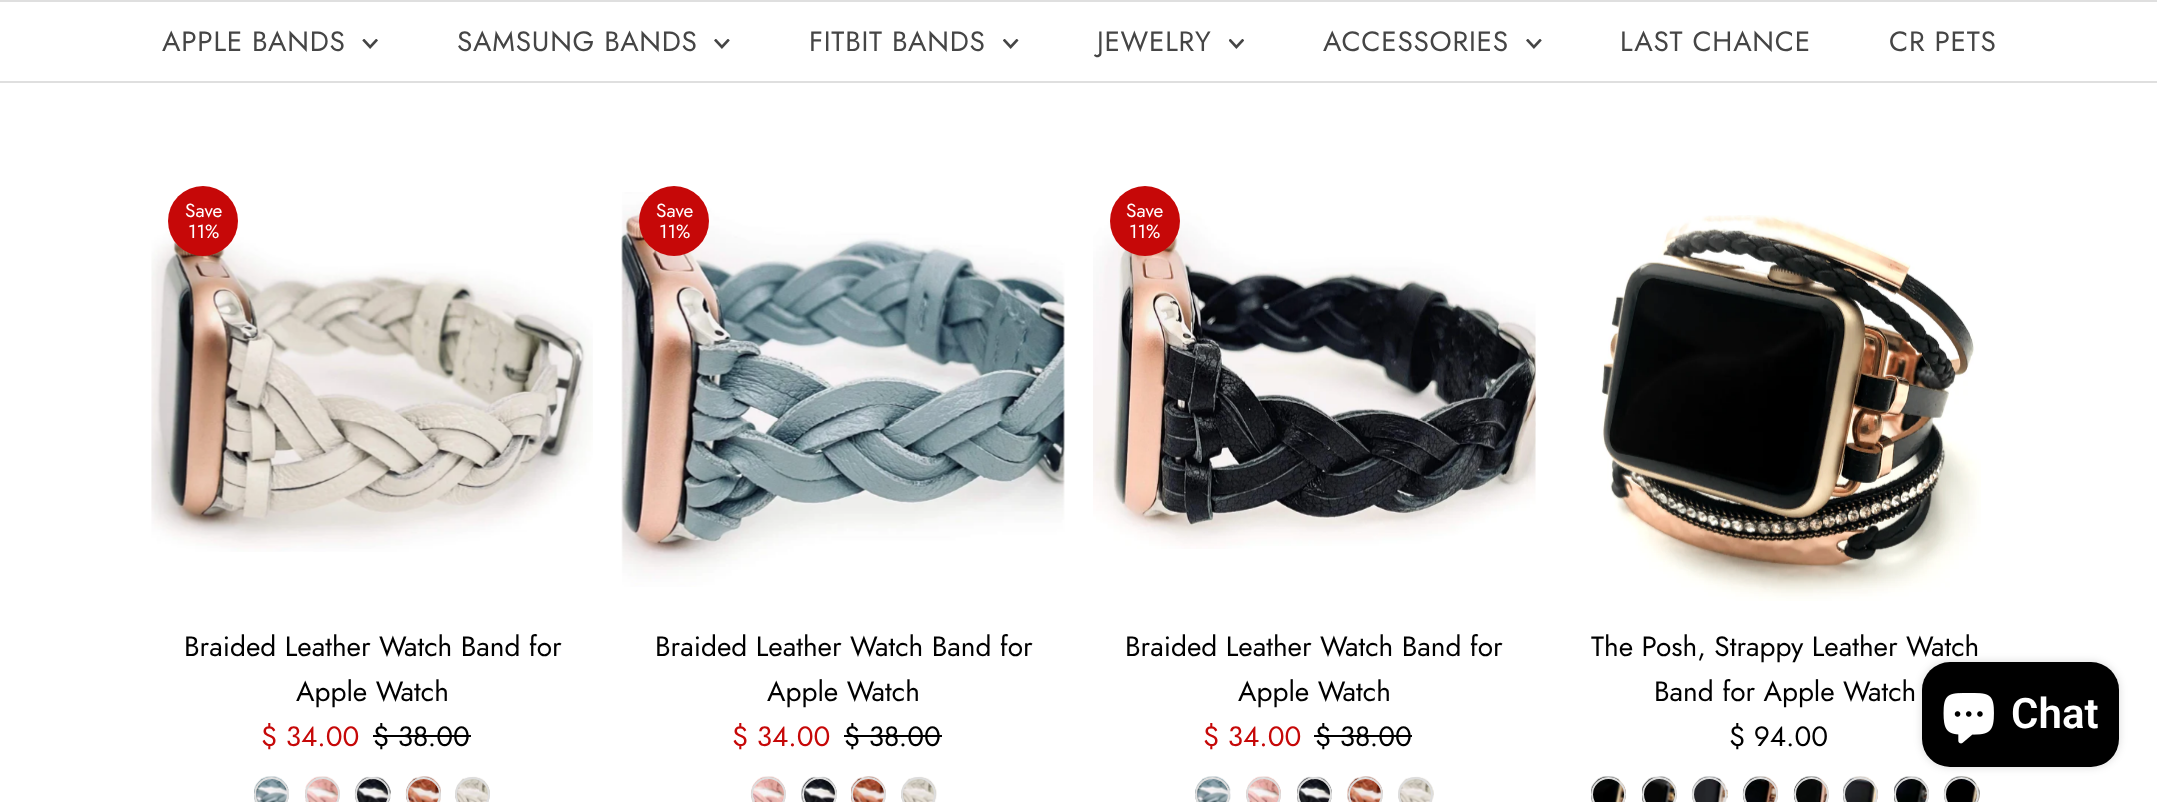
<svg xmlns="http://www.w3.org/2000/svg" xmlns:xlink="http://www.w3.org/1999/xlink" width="2157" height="802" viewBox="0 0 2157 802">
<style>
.cls-1{font:28px Jost;letter-spacing:0.75px;fill:#454545}
.cls-2{font:19px Jost;fill:#ffffff}
.cls-3{font:28px Jost;fill:#000000}
.cls-4{font:28px Jost;fill:#c60808}
.cls-5{font:600 42px Roboto;fill:#ffffff}
</style>
<rect width="100%" height="100%" fill="#ffffff"/>
<rect fill="#dfdfdf" x="0" y="0" width="2157" height="2"/>
<rect fill="#dfdfdf" x="0" y="81" width="2157" height="2"/>
<image xlink:href="image0.png" x="362" y="39" width="16" height="10"/>
<image xlink:href="image1.png" x="714" y="39" width="16" height="10"/>
<image xlink:href="image2.png" x="1003" y="39" width="16" height="10"/>
<image xlink:href="image3.png" x="1229" y="39" width="15" height="10"/>
<image xlink:href="image1.png" x="1526" y="39" width="16" height="10"/>
<image xlink:href="image4.png" x="151" y="226" width="442" height="326"/>
<circle fill="#c60808" cx="203" cy="221" r="35"/>
<rect fill="#000000" x="373" y="735" width="98" height="2"/>
<image xlink:href="image5.png" x="254" y="776" width="35" height="26"/>
<circle fill="none" stroke="#dddddd" stroke-width="2" cx="271.5" cy="794.5" r="16.5"/>
<image xlink:href="image6.png" x="305" y="776" width="35" height="26"/>
<circle fill="none" stroke="#dddddd" stroke-width="2" cx="322.5" cy="794.5" r="16.5"/>
<image xlink:href="image7.png" x="354" y="776" width="37" height="26"/>
<circle fill="none" stroke="#dddddd" stroke-width="2" cx="372.5" cy="794.5" r="16.5"/>
<image xlink:href="image8.png" x="405" y="776" width="36" height="26"/>
<circle fill="none" stroke="#dddddd" stroke-width="2" cx="423.5" cy="794.5" r="16.5"/>
<image xlink:href="image9.png" x="455" y="776" width="35" height="26"/>
<circle fill="none" stroke="#dddddd" stroke-width="2" cx="472.5" cy="794.5" r="16.5"/>
<image xlink:href="image10.png" x="621" y="192" width="444" height="395"/>
<circle fill="#c60808" cx="674" cy="221" r="35"/>
<rect fill="#000000" x="844" y="735" width="98" height="2"/>
<image xlink:href="image11.png" x="750" y="776" width="36" height="26"/>
<circle fill="none" stroke="#dddddd" stroke-width="2" cx="768.5" cy="794.5" r="16.5"/>
<image xlink:href="image12.png" x="801" y="776" width="36" height="26"/>
<circle fill="none" stroke="#dddddd" stroke-width="2" cx="819.5" cy="794.5" r="16.5"/>
<image xlink:href="image13.png" x="851" y="776" width="35" height="26"/>
<circle fill="none" stroke="#dddddd" stroke-width="2" cx="868.5" cy="794.5" r="16.5"/>
<image xlink:href="image14.png" x="901" y="776" width="36" height="26"/>
<circle fill="none" stroke="#dddddd" stroke-width="2" cx="918.5" cy="794.5" r="16.5"/>
<image xlink:href="image15.png" x="1093" y="210" width="443" height="339"/>
<circle fill="#c60808" cx="1145" cy="221" r="35"/>
<rect fill="#000000" x="1314" y="735" width="98" height="2"/>
<image xlink:href="image16.png" x="1195" y="776" width="36" height="26"/>
<circle fill="none" stroke="#dddddd" stroke-width="2" cx="1212.5" cy="794.5" r="16.5"/>
<image xlink:href="image17.png" x="1246" y="776" width="35" height="26"/>
<circle fill="none" stroke="#dddddd" stroke-width="2" cx="1263.5" cy="794.5" r="16.5"/>
<image xlink:href="image18.png" x="1297" y="776" width="35" height="26"/>
<circle fill="none" stroke="#dddddd" stroke-width="2" cx="1314.5" cy="794.5" r="16.5"/>
<image xlink:href="image19.png" x="1347" y="776" width="36" height="26"/>
<circle fill="none" stroke="#dddddd" stroke-width="2" cx="1365.5" cy="794.5" r="16.5"/>
<image xlink:href="image20.png" x="1398" y="776" width="36" height="26"/>
<circle fill="none" stroke="#dddddd" stroke-width="2" cx="1415.5" cy="794.5" r="16.5"/>
<image xlink:href="image21.png" x="1601" y="215" width="380" height="386"/>
<image xlink:href="image22.png" x="1591" y="776" width="35" height="26"/>
<circle fill="none" stroke="#dddddd" stroke-width="2" cx="1608.5" cy="794.5" r="16.5"/>
<image xlink:href="image23.png" x="1642" y="776" width="35" height="26"/>
<circle fill="none" stroke="#dddddd" stroke-width="2" cx="1659.5" cy="794.5" r="16.5"/>
<image xlink:href="image24.png" x="1691" y="776" width="37" height="26"/>
<circle fill="none" stroke="#dddddd" stroke-width="2" cx="1709.5" cy="794.5" r="16.5"/>
<image xlink:href="image25.png" x="1742" y="776" width="36" height="26"/>
<circle fill="none" stroke="#dddddd" stroke-width="2" cx="1760.5" cy="794.5" r="16.5"/>
<image xlink:href="image26.png" x="1793" y="776" width="36" height="26"/>
<circle fill="none" stroke="#dddddd" stroke-width="2" cx="1811.5" cy="794.5" r="16.5"/>
<image xlink:href="image27.png" x="1843" y="776" width="35" height="26"/>
<circle fill="none" stroke="#dddddd" stroke-width="2" cx="1860.5" cy="794.5" r="16.5"/>
<image xlink:href="image28.png" x="1894" y="776" width="35" height="26"/>
<circle fill="none" stroke="#dddddd" stroke-width="2" cx="1911.5" cy="794.5" r="16.5"/>
<image xlink:href="image29.png" x="1943" y="776" width="37" height="26"/>
<circle fill="none" stroke="#dddddd" stroke-width="2" cx="1961.5" cy="794.5" r="16.5"/>
<rect fill="#000000" fill-opacity="0.15" filter="blur(4.5px)" x="1922" y="662" width="197" height="105" rx="28"/>
<rect fill="#000000" x="1922" y="662" width="197" height="105" rx="28"/>
<image xlink:href="image30.png" x="1943" y="693" width="51" height="51"/>
<text class="cls-1" x="162" y="51">APPLE BANDS</text>
<text class="cls-1" x="457" y="51">SAMSUNG BANDS</text>
<text class="cls-1" x="809" y="51">FITBIT BANDS</text>
<text class="cls-1" x="1097" y="51">JEWELRY</text>
<text class="cls-1" x="1323" y="51">ACCESSORIES</text>
<text class="cls-1" x="1620" y="51">LAST CHANCE</text>
<text class="cls-1" x="1889" y="51">CR PETS</text>
<text class="cls-2" x="185" y="217">Save</text>
<text class="cls-2" x="188" y="238">11%</text>
<text class="cls-3" x="184" y="656">Braided Leather Watch Band for</text>
<text class="cls-3" x="296" y="701">Apple Watch</text>
<text class="cls-4" x="261" y="746">$ 34.00</text>
<text class="cls-3" x="373" y="746">$ 38.00</text>
<text class="cls-2" x="656" y="217">Save</text>
<text class="cls-2" x="659" y="238">11%</text>
<text class="cls-3" x="655" y="656">Braided Leather Watch Band for</text>
<text class="cls-3" x="767" y="701">Apple Watch</text>
<text class="cls-4" x="732" y="746">$ 34.00</text>
<text class="cls-3" x="844" y="746">$ 38.00</text>
<text class="cls-2" x="1126" y="217">Save</text>
<text class="cls-2" x="1129" y="238">11%</text>
<text class="cls-3" x="1125" y="656">Braided Leather Watch Band for</text>
<text class="cls-3" x="1238" y="701">Apple Watch</text>
<text class="cls-4" x="1203" y="746">$ 34.00</text>
<text class="cls-3" x="1315" y="746">$ 38.00</text>
<text class="cls-3" x="1591" y="656">The Posh, Strappy Leather Watch</text>
<text class="cls-3" x="1654" y="701">Band for Apple Watch</text>
<text class="cls-3" x="1729" y="746">$ 94.00</text>
<text class="cls-5" x="2011" y="728">Chat</text>
</svg>
